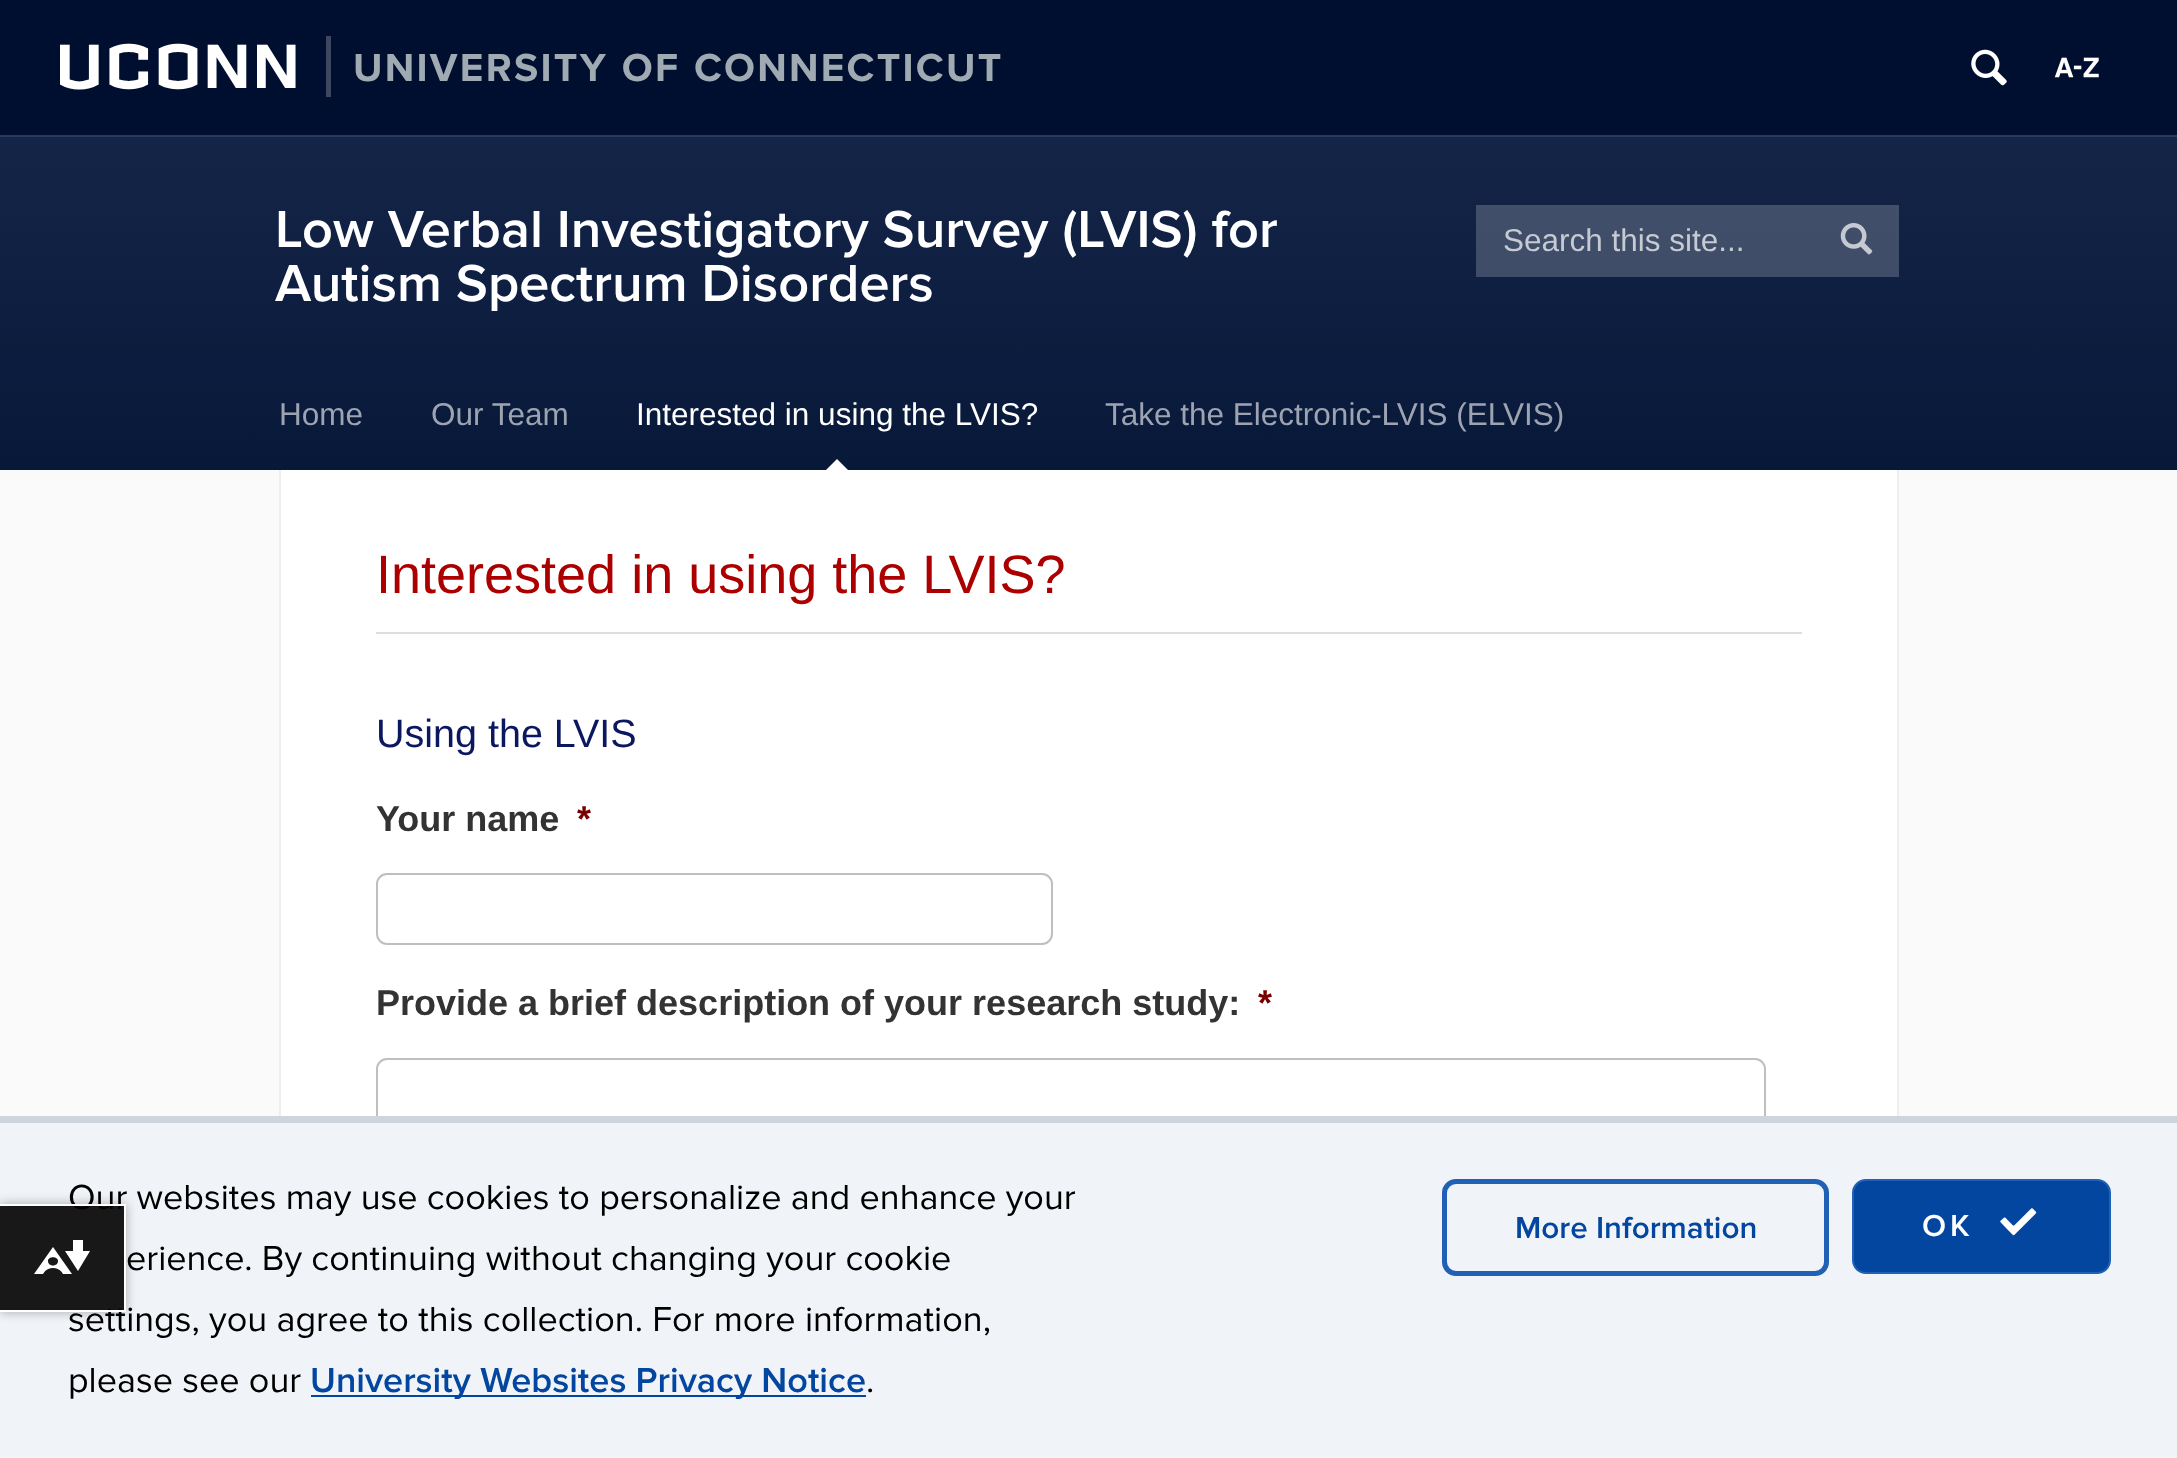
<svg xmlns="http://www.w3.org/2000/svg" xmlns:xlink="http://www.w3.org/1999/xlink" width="2177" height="1458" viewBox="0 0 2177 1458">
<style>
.cls-1{font:72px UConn;letter-spacing:6.75px;fill:#ffffff}
.cls-2{font:bold 40.5px Proxima Nova;letter-spacing:2.25px;fill:#9faab2}
.cls-3{font:600 54px Proxima Nova;fill:#ffffff}
.cls-4{font:31.5px Liberation Sans;fill:#c6cad2}
.cls-5{font:31.5px Liberation Sans;fill:#9da3b1}
.cls-6{font:31.5px Liberation Sans;fill:#ffffff}
.cls-7{font:54px Liberation Sans;fill:#ac0000}
.cls-8{font:39.5px Liberation Sans;fill:#0b1860}
.cls-9{font:bold 36px Liberation Sans;fill:#333333}
.cls-10{font:bold 36px Liberation Sans;fill:#790000}
.cls-11{font:36px Proxima Nova;fill:#000000}
.cls-12{font:600 36px Proxima Nova;fill:#03469f}
.cls-13{font:600 31.5px Proxima Nova;fill:#03469f}
.cls-14{font:600 31.5px Proxima Nova;letter-spacing:4px;fill:#ffffff}
</style>
<defs>
<linearGradient id="g1" gradientUnits="userSpaceOnUse" x1="1089" y1="137" x2="1089" y2="470"><stop offset="0" stop-color="#142548"/><stop offset="1" stop-color="#071839"/></linearGradient>
<linearGradient id="g2" gradientUnits="userSpaceOnUse" x1="1089" y1="137" x2="1089" y2="470"><stop offset="0" stop-color="#43516d"/><stop offset="1" stop-color="#394661"/></linearGradient>
<clipPath id="clip1"><path d="M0 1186H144V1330H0ZM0 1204H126V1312H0Z" clip-rule="evenodd"/></clipPath>
</defs>
<rect width="100%" height="100%" fill="#fafafa"/>
<rect fill="#000e2f" x="0" y="0" width="2177" height="135"/>
<rect fill="#273a60" x="0" y="135" width="2177" height="2"/>
<rect fill="#3f4760" x="326" y="36" width="5" height="61"/>
<image xlink:href="image0.png" x="1971" y="49" width="36" height="37"/>
<image xlink:href="image1.png" x="2054" y="57" width="45" height="21"/>
<rect fill="url(#g1)" x="0" y="137" width="2177" height="333"/>
<rect fill="url(#g2)" x="1814" y="205" width="85" height="72"/>
<rect fill="url(#g2)" x="1476" y="205" width="338" height="72"/>
<image xlink:href="image2.png" x="1840" y="223" width="33" height="32"/>
<rect fill="#ffffff" x="281" y="470" width="1616" height="646"/>
<path fill="#ffffff" d="M850.5 472.5H823.5L837 459Z"/>
<rect fill="#eeeeee" x="1897" y="470" width="2" height="646"/>
<rect fill="#eeeeee" x="279" y="470" width="2" height="646"/>
<rect fill="#dddddd" x="376" y="632" width="1426" height="2"/>
<rect fill="none" stroke="#bfbfbf" stroke-width="2" x="377" y="874" width="675" height="70" rx="10"/>
<rect fill="none" stroke="#bfbfbf" stroke-width="2" x="377" y="1059" width="1388" height="358" rx="10"/>
<rect fill="#f0f3f7" x="0" y="1123" width="2177" height="335"/>
<rect fill="#cfd5dd" x="0" y="1116" width="2177" height="7"/>
<rect fill="#03469f" x="311" y="1395" width="555" height="2"/>
<rect fill="none" stroke="#2061b6" stroke-width="5" x="1444.5" y="1181.5" width="382" height="92" rx="11.5"/>
<rect fill="#03469f" stroke="#2061b6" stroke-width="2" x="1853" y="1180" width="257" height="93" rx="13"/>
<image xlink:href="image3.png" x="2000" y="1208" width="37" height="28"/>
<g clip-path="url(#clip1)">
<rect fill="#000000" fill-opacity="0.3" filter="blur(5.5px)" x="0" y="1204" width="126" height="108"/>
</g>
<text class="cls-1" x="60" y="88">UCONN</text>
<text class="cls-2" x="353" y="81" word-spacing="1">UNIVERSITY OF CONNECTICUT</text>
<text class="cls-3"><tspan x="275" y="247">Low Verbal Investigatory Survey (LVIS) for</tspan><tspan x="275" y="301">Autism Spectrum Disorders</tspan></text>
<text class="cls-4" x="1503" y="251">Search this site...</text>
<text class="cls-5" x="279" y="425">Home</text>
<text class="cls-5" x="431" y="425">Our Team</text>
<text class="cls-6" x="636" y="425">Interested in using the LVIS?</text>
<text class="cls-5" x="1105" y="425">Take the Electronic-LVIS (ELVIS)</text>
<text class="cls-7" x="376" y="593">Interested in using the LVIS?</text>
<text class="cls-8" x="376" y="747">Using the LVIS</text>
<text class="cls-9" x="376" y="831">Your name</text>
<text class="cls-10" x="577" y="831">*</text>
<text class="cls-9" x="376" y="1015">Provide a brief description of your research study:</text>
<text class="cls-10" x="1258" y="1015">*</text>
<text class="cls-11" x="68" y="1209">Our websites may use cookies to personalize and enhance your</text>
<text class="cls-11" x="126" y="1270">erience. By continuing without changing your cookie</text>
<text class="cls-11"><tspan x="68" y="1331">settings, you agree to this collection. For more information,</tspan><tspan x="68" y="1392">please see our</tspan></text>
<text class="cls-12" x="310" y="1392">University Websites Privacy Notice</text>
<text class="cls-11" x="866" y="1392">.</text>
<text class="cls-13" x="1515" y="1238">More Information</text>
<text class="cls-14" x="1922" y="1236">OK</text>
<rect fill="#000000" fill-opacity="0.9" x="0" y="1206" width="124" height="104"/>
<rect fill="#ffffff" x="0" y="1204" width="126" height="2"/>
<rect fill="#ffffff" x="124" y="1204" width="2" height="108"/>
<rect fill="#ffffff" x="0" y="1310" width="126" height="2"/>
<path fill="#ffffff" fill-rule="evenodd" d="M90 1251L78 1271L65 1251H73V1240H83V1251ZM34 1274L53 1247L72 1274H63C59 1266 47 1266 43 1274ZM48 1261C48 1267 58 1267 58 1261C58 1256 48 1256 48 1261Z"/>
</svg>
